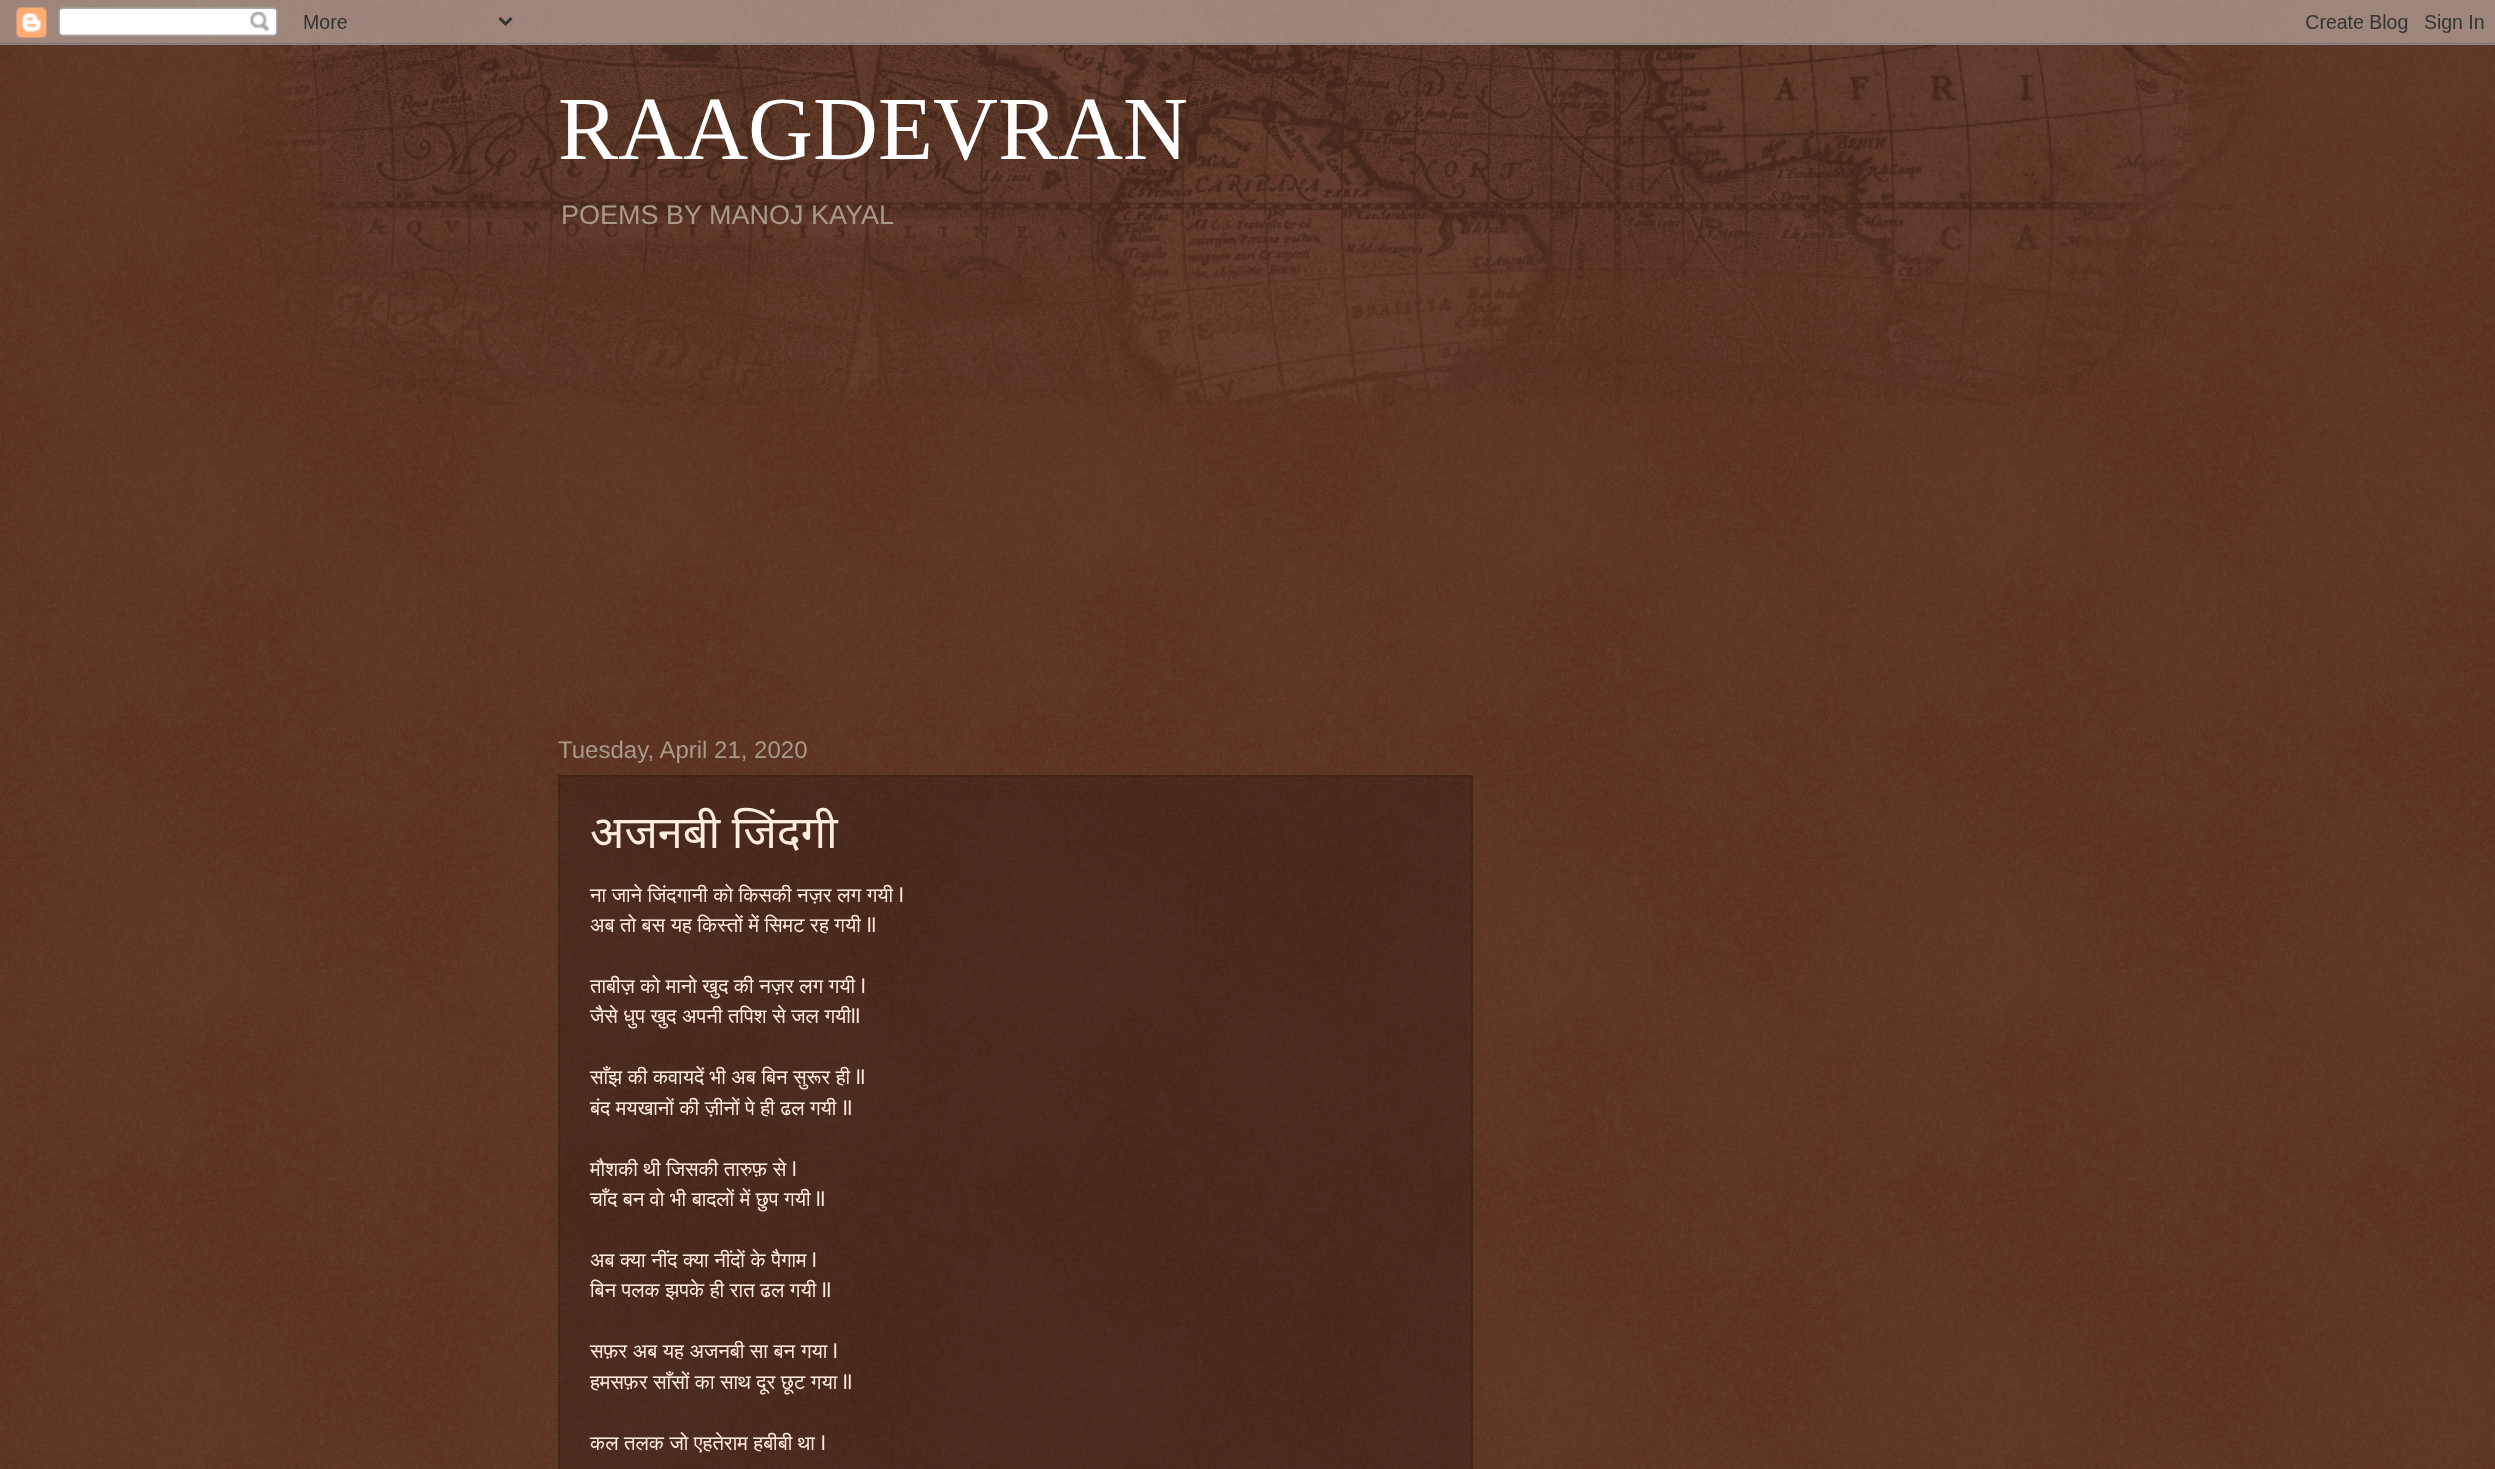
<svg xmlns="http://www.w3.org/2000/svg" xmlns:xlink="http://www.w3.org/1999/xlink" width="2495" height="1469" viewBox="0 0 2495 1469">
<style>
.cls-1{font:90px Liberation Serif;fill:#ffffff}
.cls-2{font:27px Liberation Sans;fill:#aa9988}
.cls-3{font:24px Liberation Sans;fill:#aa9988}
.cls-4{font:45px Noto Sans;fill:#ffeedd}
.cls-5{font:20.25px FreeSans;fill:#ffeedd}
.cls-6{font:20.25px Liberation Sans;fill:#ffeedd}
</style>
<rect width="100%" height="100%" fill="#441500"/>
<image xlink:href="image0.png" x="0" y="0" width="2495" height="1469"/>
<image xlink:href="image1.png" x="0" y="0" width="2495" height="45"/>
<image xlink:href="image2.png" x="234" y="45" width="2028" height="360"/>
<rect fill="#000000" fill-opacity="0.2" x="558" y="775" width="915" height="694"/>
<path fill="none" stroke="#332211" stroke-width="1.5" stroke-dasharray="1.5 1.5" d="M558 776H1473"/>
<path fill="none" stroke="#332211" stroke-width="1.5" stroke-dasharray="1.5 1.5" d="M1472 775.5V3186"/>
<path fill="none" stroke="#332211" stroke-width="1.5" stroke-dasharray="1.5 1.5" d="M559 775.5V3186"/>
<text class="cls-1" x="558" y="159">RAAGDEVRAN</text>
<text class="cls-2" x="561" y="224">POEMS BY MANOJ KAYAL</text>
<text class="cls-3" x="558" y="758">Tuesday, April 21, 2020</text>
<text class="cls-4" x="590" y="848">अजनबी जिंदगी</text>
<text class="cls-5" x="590" y="902" word-spacing="0.5">ना जाने जिंदगानी को किसकी नज़र लग गयी</text>
<text class="cls-6" x="899" y="902">l</text>
<text class="cls-5" x="590" y="932" word-spacing="0.5">अब तो बस यह किस्तों में सिमट रह गयी</text>
<text class="cls-6" x="867" y="932">ll</text>
<text class="cls-5" x="590" y="993" word-spacing="0.5">ताबीज़ को मानो खुद की नज़र लग गयी</text>
<text class="cls-6" x="861" y="993">l</text>
<text class="cls-5" x="590" y="1023" word-spacing="0.5">जैसे धुप खुद अपनी तपिश से जल गयी</text>
<text class="cls-6" x="851" y="1023">ll</text>
<text class="cls-5" x="590" y="1084" word-spacing="0.5">साँझ की कवायदें भी अब बिन सुरूर ही</text>
<text class="cls-6" x="856" y="1084">ll</text>
<text class="cls-5" x="590" y="1115" word-spacing="0.5">बंद मयखानों की ज़ीनों</text>
<text class="cls-5" x="745" y="1115" word-spacing="0.5">पे ही ढल गयी</text>
<text class="cls-6" x="843" y="1115">ll</text>
<text class="cls-5" x="590" y="1176" word-spacing="0.5">मौशकी थी जिसकी तारुफ़ से</text>
<text class="cls-6" x="792" y="1176">l</text>
<text class="cls-5" x="590" y="1206" word-spacing="0.5">चाँद बन वो भी बादलों में छुप गयी</text>
<text class="cls-6" x="816" y="1206">ll</text>
<text class="cls-5" x="590" y="1267" word-spacing="0.5">अब क्या नींद क्या नींदों के पैगाम</text>
<text class="cls-6" x="812" y="1267">l</text>
<text class="cls-5" x="590" y="1297" word-spacing="0.5">बिन पलक झपके ही रात ढल गयी</text>
<text class="cls-6" x="822" y="1297">ll</text>
<text class="cls-5" x="590" y="1358" word-spacing="0.5">सफ़र अब यह अजनबी सा बन</text>
<text class="cls-5" x="801" y="1358">गया</text>
<text class="cls-6" x="833" y="1358">l</text>
<text class="cls-5" x="590" y="1389" word-spacing="0.5">हमसफ़र साँसों का साथ दूर छूट गया</text>
<text class="cls-6" x="843" y="1389">ll</text>
<text class="cls-5" x="590" y="1450" word-spacing="0.5">कल तलक जो एहतेराम हबीबी था</text>
<text class="cls-6" x="821" y="1450">l</text>
</svg>
